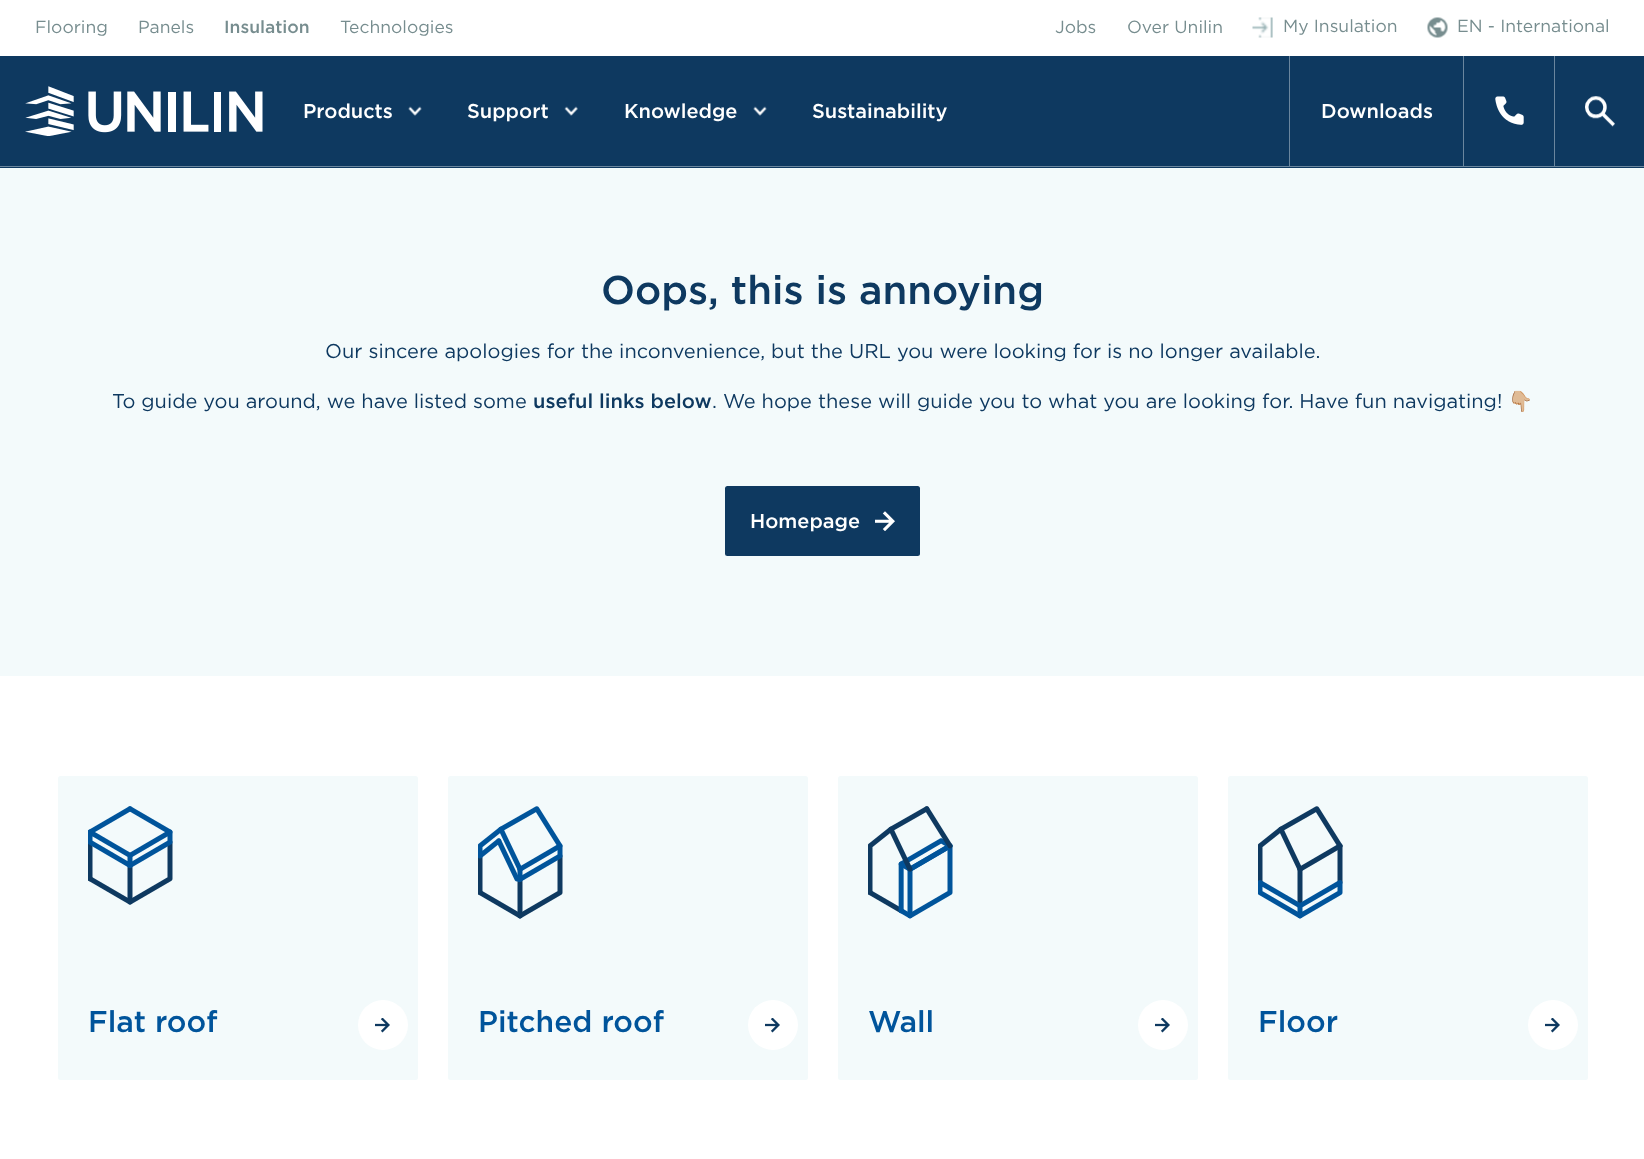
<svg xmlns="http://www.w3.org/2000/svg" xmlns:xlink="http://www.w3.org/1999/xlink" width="1644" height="1159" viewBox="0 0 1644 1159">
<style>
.cls-1{font:17.5px Gotham;fill:#778d8f}
.cls-2{font:500 17.5px Gotham;fill:#778d8f}
.cls-3{font:500 20px Gotham;fill:#ffffff}
.cls-4{font:500 40px Gotham;fill:#0e3960}
.cls-5{font:20px Gotham;fill:#0e3960}
.cls-6{font:500 20px Gotham;fill:#0e3960}
.cls-7{font:20px Noto Color Emoji;fill:#0e3960}
.cls-8{font:500 30px Gotham;fill:#00549b}
</style>
<rect width="100%" height="100%" fill="#ffffff"/>
<image xlink:href="image0.png" x="1252" y="17" width="21" height="21"/>
<image xlink:href="image1.png" x="1427" y="17" width="21" height="21"/>
<rect fill="#0e3960" x="0" y="56" width="1644" height="112"/>
<rect fill="#6a869e" x="0" y="166" width="1644" height="1"/>
<image xlink:href="image2.png" x="25" y="86" width="238" height="50"/>
<image xlink:href="image3.png" x="408" y="106" width="14" height="10"/>
<image xlink:href="image4.png" x="564" y="106" width="14" height="10"/>
<image xlink:href="image3.png" x="753" y="106" width="14" height="10"/>
<rect fill="#6a869e" x="1289" y="56" width="1" height="110"/>
<rect fill="#6a869e" x="1463" y="56" width="1" height="110"/>
<image xlink:href="image5.png" x="1495" y="96" width="29" height="29"/>
<rect fill="#6a869e" x="1554" y="56" width="1" height="110"/>
<image xlink:href="image6.png" x="1585" y="96" width="30" height="31"/>
<rect fill="#f3fafb" x="0" y="168" width="1644" height="508"/>
<rect fill="#0e3960" x="725" y="486" width="195" height="70" rx="2.5"/>
<image xlink:href="image7.png" x="875" y="511" width="20" height="20"/>
<rect fill="#f3fafb" x="58" y="776" width="360" height="304" rx="2.5"/>
<image xlink:href="image8.png" x="88" y="806" width="85" height="99"/>
<circle fill="#ffffff" cx="383" cy="1025" r="25"/>
<image xlink:href="image9.png" x="375" y="1018" width="15" height="15"/>
<rect fill="#f3fafb" x="448" y="776" width="360" height="304" rx="2.5"/>
<image xlink:href="image10.png" x="478" y="806" width="85" height="113"/>
<circle fill="#ffffff" cx="773" cy="1025" r="25"/>
<image xlink:href="image9.png" x="765" y="1018" width="15" height="15"/>
<rect fill="#f3fafb" x="838" y="776" width="360" height="304" rx="2.5"/>
<image xlink:href="image11.png" x="868" y="806" width="85" height="113"/>
<circle fill="#ffffff" cx="1163" cy="1025" r="25"/>
<image xlink:href="image9.png" x="1155" y="1018" width="15" height="15"/>
<rect fill="#f3fafb" x="1228" y="776" width="360" height="304" rx="2.5"/>
<image xlink:href="image12.png" x="1258" y="806" width="85" height="113"/>
<circle fill="#ffffff" cx="1553" cy="1025" r="25"/>
<image xlink:href="image9.png" x="1545" y="1018" width="15" height="15"/>
<text class="cls-1" x="35" y="33">Flooring</text>
<text class="cls-1" x="138" y="33">Panels</text>
<text class="cls-2" x="224" y="33">Insulation</text>
<text class="cls-1" x="340" y="33">Technologies</text>
<text class="cls-1" x="1055" y="33">Jobs</text>
<text class="cls-1" x="1127" y="33">Over Unilin</text>
<text class="cls-1" x="1283" y="32">My Insulation</text>
<text class="cls-1" x="1457" y="32">EN - International</text>
<text class="cls-3" x="303" y="118">Products</text>
<text class="cls-3" x="467" y="118">Support</text>
<text class="cls-3" x="624" y="118">Knowledge</text>
<text class="cls-3" x="812" y="118">Sustainability</text>
<text class="cls-3" x="1321" y="118">Downloads</text>
<text class="cls-4" x="601" y="304">Oops, this is annoying</text>
<text class="cls-5" x="325" y="358">Our sincere apologies for the inconvenience, but the URL you were looking for is no longer available.</text>
<text class="cls-5" x="112" y="408">To guide you around, we have listed some</text>
<text class="cls-6" x="533" y="408">useful links below</text>
<text class="cls-5" x="712" y="408">. We hope these will guide you to what you are looking for. Have fun navigating!</text>
<text class="cls-7" x="1508" y="408">👇🏼</text>
<text class="cls-3" x="750" y="528">Homepage</text>
<text class="cls-8" x="88" y="1032">Flat roof</text>
<text class="cls-8" x="478" y="1032">Pitched roof</text>
<text class="cls-8" x="868" y="1032">Wall</text>
<text class="cls-8" x="1258" y="1032">Floor</text>
</svg>
